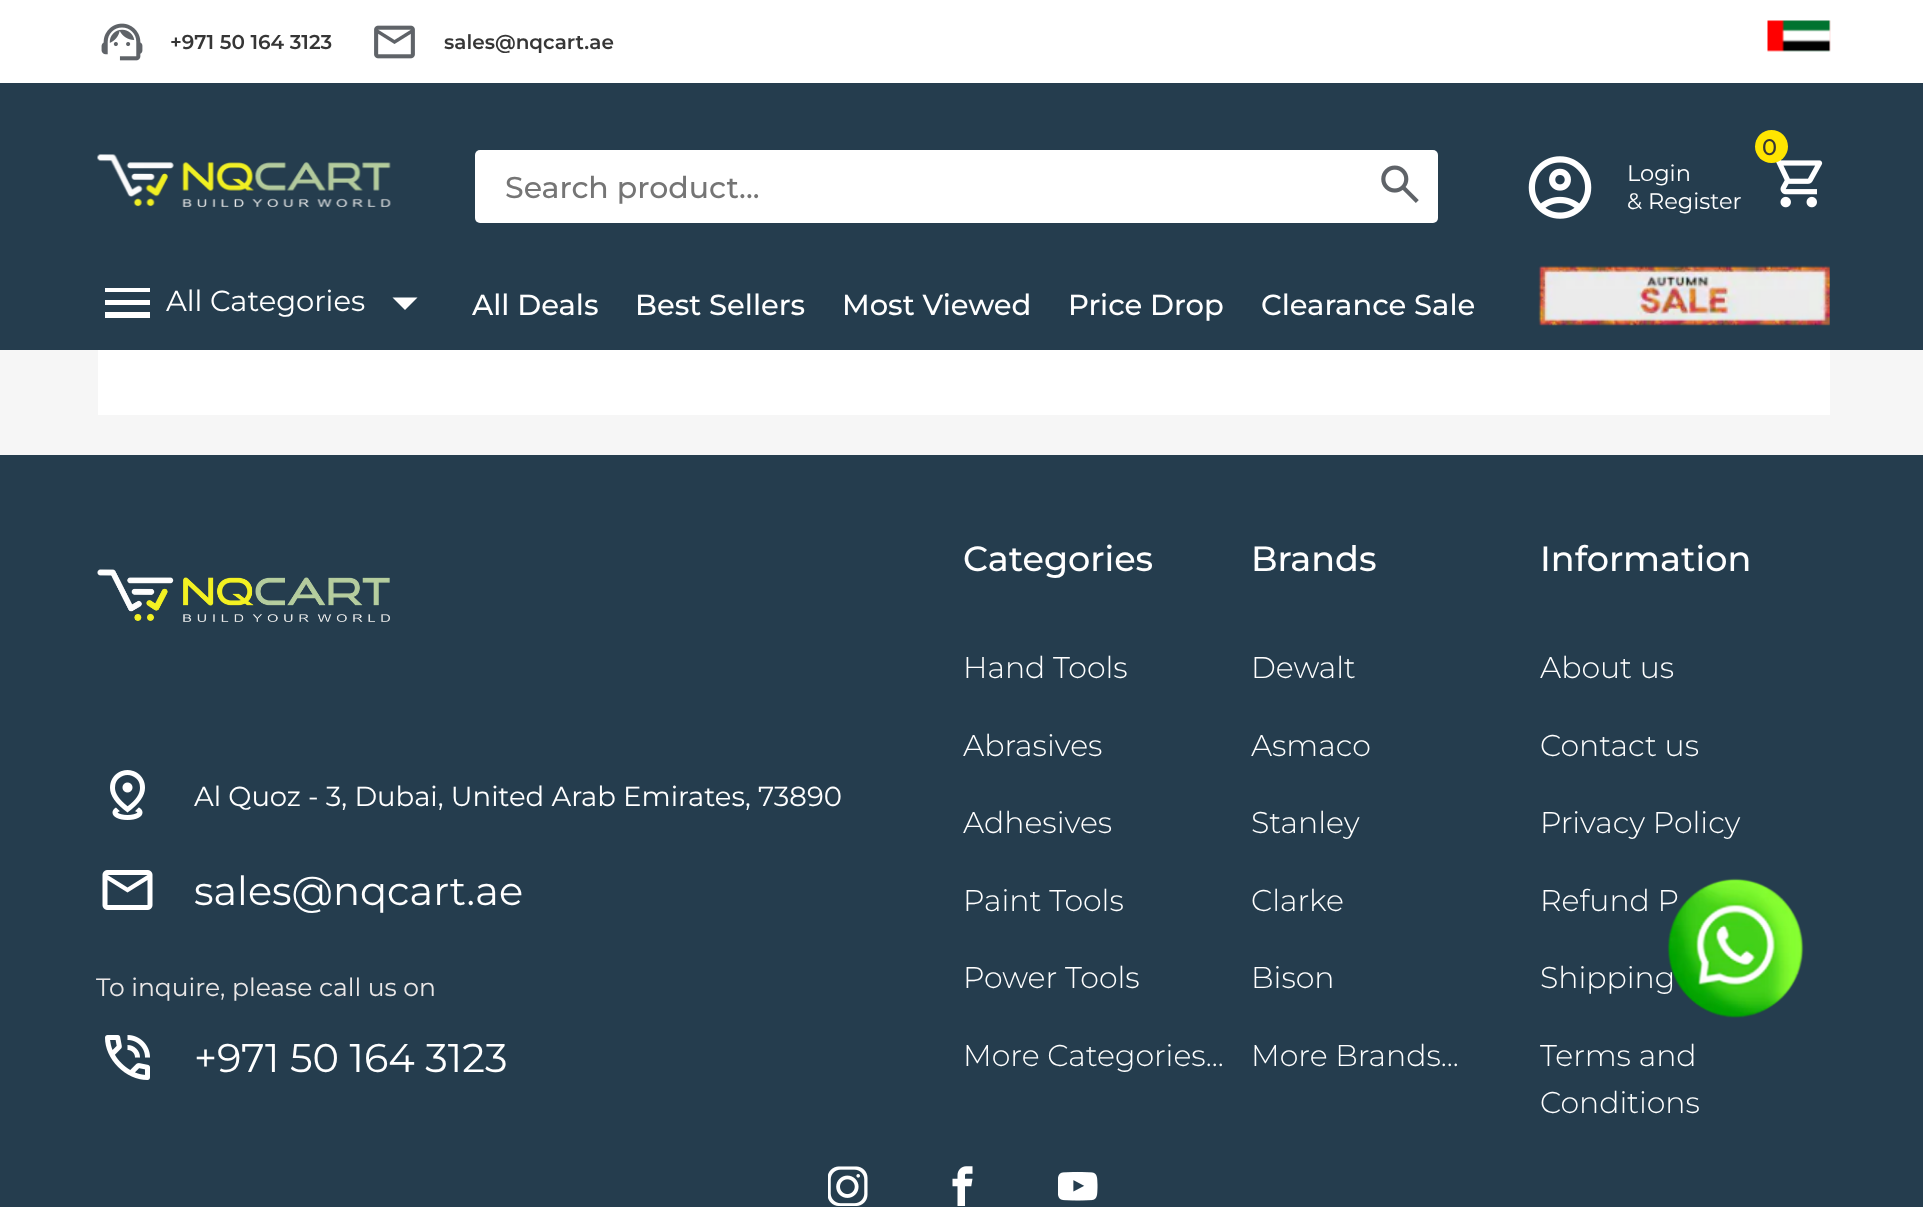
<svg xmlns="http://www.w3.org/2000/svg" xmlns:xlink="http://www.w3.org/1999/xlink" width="1923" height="1207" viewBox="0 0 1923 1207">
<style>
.cls-1{font:600 20px Montserrat;fill:#363636}
.cls-2{font:500 30px Montserrat;fill:#757575}
.cls-3{font:500 22.5px Montserrat;fill:#363636}
.cls-4{font:22.5px Montserrat;fill:#ffffff}
.cls-5{font:29px Montserrat;fill:#ffffff}
.cls-6{font:500 29px Montserrat;fill:#ffffff}
.cls-7{font:27.5px Montserrat;fill:#ffffff}
.cls-8{font:40px Montserrat;fill:#ffffff}
.cls-9{font:25px Montserrat;fill:#eae7e7}
.cls-10{font:500 35px Montserrat;fill:#ffffff}
.cls-11{font:300 30px Montserrat;fill:#ffffff}
</style>
<rect width="100%" height="100%" fill="#f6f6f6"/>
<rect fill="#253d4e" x="0" y="83" width="1923" height="267"/>
<rect fill="#ffffff" x="0" y="0" width="1923" height="83"/>
<image xlink:href="image0.png" x="101" y="23" width="42" height="38"/>
<image xlink:href="image1.png" x="374" y="25" width="41" height="34"/>
<image xlink:href="image2.png" x="1767" y="20" width="64" height="32"/>
<image xlink:href="image3.png" x="97" y="154" width="294" height="53"/>
<rect fill="#ffffff" x="475" y="150" width="963" height="73" rx="5"/>
<image xlink:href="image4.png" x="1381" y="165" width="38" height="38"/>
<image xlink:href="image5.png" x="1776" y="160" width="47" height="48"/>
<circle fill="#ffe500" cx="1771.5" cy="146.5" r="16.5"/>
<image xlink:href="image6.png" x="1528" y="156" width="64" height="63"/>
<path fill="#ffffff" d="M105 318V312H150V318ZM105 305V300H150V305ZM105 292V288H150V292Z"/>
<path fill="#ffffff" d="M405 310L392.5 297.5H417.5Z"/>
<image xlink:href="image7.png" x="1538" y="265" width="292" height="61"/>
<rect fill="#ffffff" x="98" y="350" width="1732" height="65"/>
<rect fill="#253d4e" x="0" y="455" width="1923" height="752"/>
<image xlink:href="image8.png" x="97" y="569" width="293" height="53"/>
<image xlink:href="image9.png" x="110" y="770" width="35" height="50"/>
<image xlink:href="image10.png" x="102" y="870" width="51" height="40"/>
<image xlink:href="image11.png" x="105" y="1035" width="45" height="45"/>
<image xlink:href="image12.png" x="828" y="1166" width="40" height="40"/>
<image xlink:href="image13.png" x="952" y="1166" width="21" height="40"/>
<image xlink:href="image14.png" x="1058" y="1171" width="40" height="30"/>
<text class="cls-1" x="170" y="49">+971 50 164 3123</text>
<text class="cls-1" x="444" y="49">sales@nqcart.ae</text>
<text class="cls-2" x="505" y="198">Search product...</text>
<text class="cls-3" x="1762" y="155">0</text>
<text class="cls-4"><tspan x="1627" y="181">Login</tspan><tspan x="1627" y="209">&amp; Register</tspan></text>
<text class="cls-5" x="166" y="311">All Categories</text>
<text class="cls-6" x="472" y="315">All Deals</text>
<text class="cls-6" x="635" y="315">Best Sellers</text>
<text class="cls-6" x="842" y="315">Most Viewed</text>
<text class="cls-6" x="1068" y="315">Price Drop</text>
<text class="cls-6" x="1261" y="315">Clearance Sale</text>
<text class="cls-7" x="194" y="806">Al Quoz - 3, Dubai, United Arab Emirates, 73890</text>
<text class="cls-8" x="194" y="905">sales@nqcart.ae</text>
<text class="cls-9" x="96" y="996">To inquire, please call us on</text>
<text class="cls-8" x="194" y="1072">+971 50 164 3123</text>
<text class="cls-10" x="963" y="571">Categories</text>
<text class="cls-11" x="963" y="678">Hand Tools</text>
<text class="cls-11" x="963" y="756">Abrasives</text>
<text class="cls-11" x="963" y="833">Adhesives</text>
<text class="cls-11" x="963" y="911">Paint Tools</text>
<text class="cls-11" x="963" y="988">Power Tools</text>
<text class="cls-11" x="963" y="1066">More Categories...</text>
<text class="cls-10" x="1251" y="571">Brands</text>
<text class="cls-11" x="1251" y="678">Dewalt</text>
<text class="cls-11" x="1251" y="756">Asmaco</text>
<text class="cls-11" x="1251" y="833">Stanley</text>
<text class="cls-11" x="1251" y="911">Clarke</text>
<text class="cls-11" x="1251" y="988">Bison</text>
<text class="cls-11" x="1251" y="1066">More Brands...</text>
<text class="cls-10" x="1540" y="571">Information</text>
<text class="cls-11" x="1540" y="678">About us</text>
<text class="cls-11" x="1540" y="756">Contact us</text>
<text class="cls-11" x="1540" y="833">Privacy Policy</text>
<text class="cls-11" x="1540" y="911">Refund P</text>
<text class="cls-11" x="1540" y="988">Shipping</text>
<text class="cls-11"><tspan x="1540" y="1066">Terms and</tspan><tspan x="1540" y="1113">Conditions</tspan></text>
<image xlink:href="image15.png" x="1667" y="878" width="137" height="140"/>
</svg>
